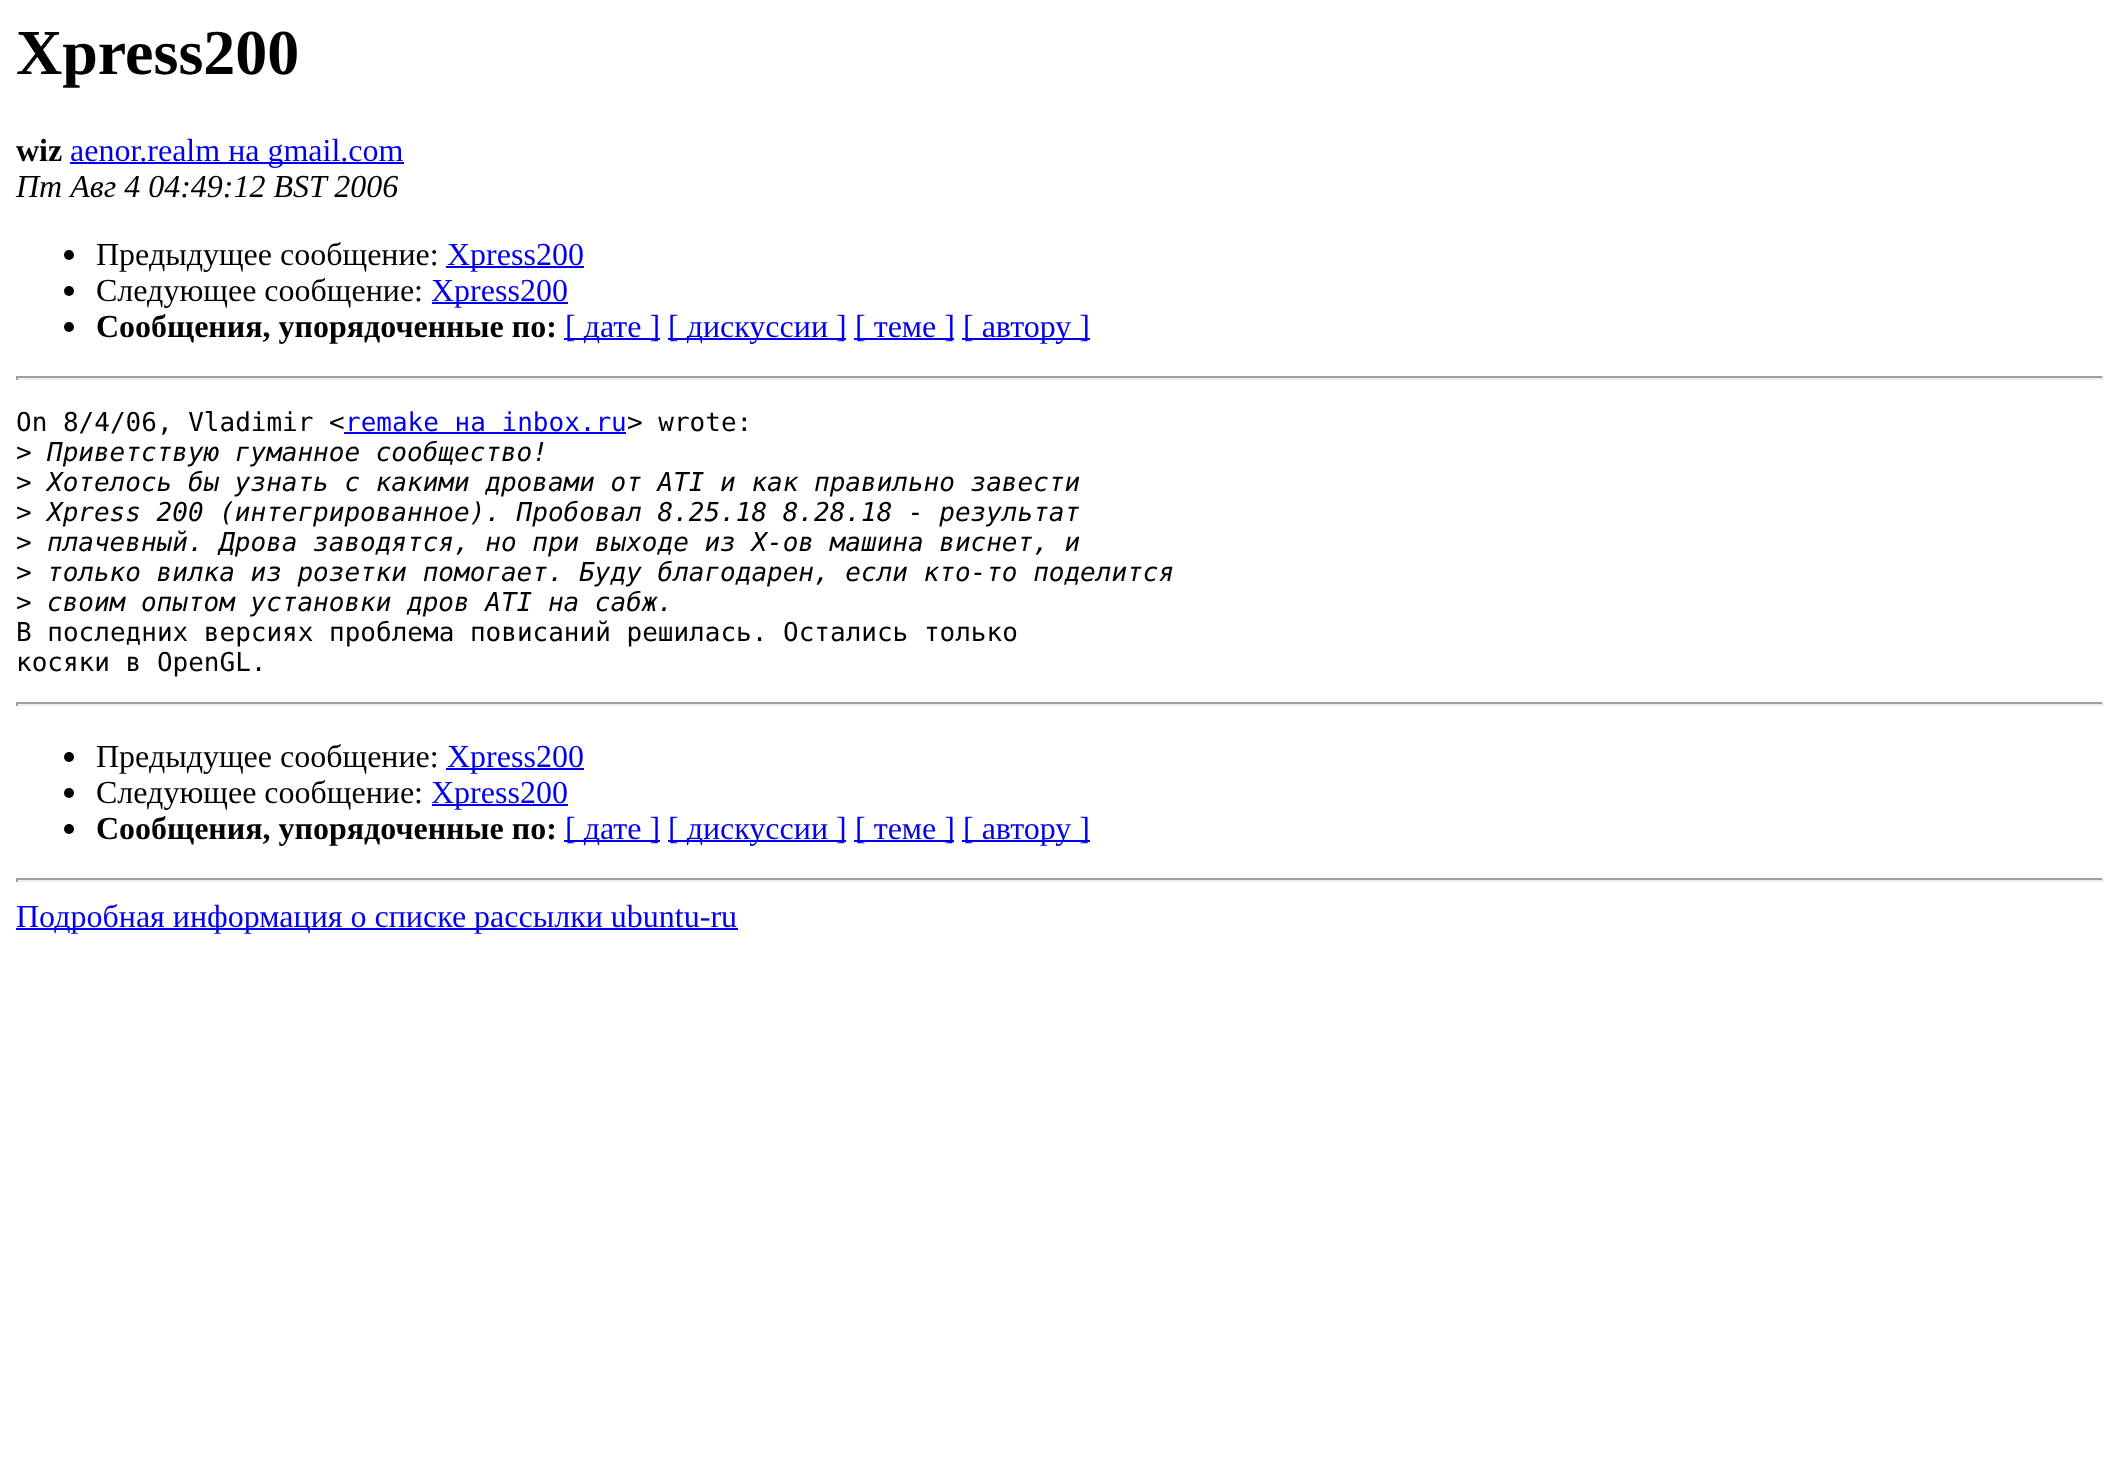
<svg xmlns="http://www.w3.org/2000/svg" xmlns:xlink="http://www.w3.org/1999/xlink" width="2120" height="1473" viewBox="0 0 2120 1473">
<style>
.cls-1{font:bold 64px Liberation Serif;fill:#000000}
.cls-2{font:bold 32px Liberation Serif;fill:#000000}
.cls-3{font:32px Liberation Serif;fill:#0000ee}
.cls-4{font:italic 32px Liberation Serif;fill:#000000}
.cls-5{font:32px Liberation Serif;fill:#000000}
.cls-6{font:26px DejaVu Sans Mono;fill:#000000}
.cls-7{font:26px DejaVu Sans Mono;fill:#0000ee}
.cls-8{font:italic 26px DejaVu Sans Mono;fill:#000000}
</style>
<rect width="100%" height="100%" fill="#ffffff"/>
<rect fill="#0000ee" x="70" y="162" width="334" height="2"/>
<circle fill="#000000" cx="69" cy="255" r="5"/>
<rect fill="#0000ee" x="446" y="266" width="138" height="2"/>
<circle fill="#000000" cx="69" cy="291" r="5"/>
<rect fill="#0000ee" x="432" y="302" width="136" height="2"/>
<circle fill="#000000" cx="69" cy="327" r="5"/>
<rect fill="#0000ee" x="564" y="338" width="96" height="2"/>
<rect fill="#0000ee" x="668" y="338" width="178" height="2"/>
<rect fill="#0000ee" x="854" y="338" width="100" height="2"/>
<rect fill="#0000ee" x="962" y="338" width="128" height="2"/>
<rect fill="#9f9f9f" x="16" y="376" width="2088" height="2"/>
<rect fill="#eeeeee" x="2102" y="376" width="2" height="4"/>
<rect fill="#eeeeee" x="16" y="378" width="2088" height="2"/>
<rect fill="#9f9f9f" x="16" y="376" width="2" height="4"/>
<rect fill="#0000ee" x="344" y="432" width="282" height="2"/>
<rect fill="#9f9f9f" x="16" y="702" width="2088" height="2"/>
<rect fill="#eeeeee" x="2102" y="702" width="2" height="4"/>
<rect fill="#eeeeee" x="16" y="704" width="2088" height="2"/>
<rect fill="#9f9f9f" x="16" y="702" width="2" height="4"/>
<circle fill="#000000" cx="69" cy="757" r="5"/>
<rect fill="#0000ee" x="446" y="768" width="138" height="2"/>
<circle fill="#000000" cx="69" cy="793" r="5"/>
<rect fill="#0000ee" x="432" y="804" width="136" height="2"/>
<circle fill="#000000" cx="69" cy="829" r="5"/>
<rect fill="#0000ee" x="564" y="840" width="96" height="2"/>
<rect fill="#0000ee" x="668" y="840" width="178" height="2"/>
<rect fill="#0000ee" x="854" y="840" width="100" height="2"/>
<rect fill="#0000ee" x="962" y="840" width="128" height="2"/>
<rect fill="#9f9f9f" x="16" y="878" width="2088" height="2"/>
<rect fill="#eeeeee" x="2102" y="878" width="2" height="4"/>
<rect fill="#eeeeee" x="16" y="880" width="2088" height="2"/>
<rect fill="#9f9f9f" x="16" y="878" width="2" height="4"/>
<rect fill="#0000ee" x="16" y="928" width="722" height="2"/>
<text class="cls-1" x="16" y="74">Xpress200</text>
<text class="cls-2" x="16" y="161">wiz</text>
<text class="cls-3" x="70" y="161">aenor.realm на gmail.com</text>
<text class="cls-4" x="16" y="197">Пт Авг 4 04:49:12 BST 2006</text>
<text class="cls-5" x="96" y="265">Предыдущее сообщение:</text>
<text class="cls-3" x="447" y="265">Xpress200</text>
<text class="cls-5" x="96" y="301">Следующее сообщение:</text>
<text class="cls-3" x="431" y="301">Xpress200</text>
<text class="cls-2" x="96" y="337">Сообщения, упорядоченные по:</text>
<text class="cls-3" x="565" y="337">[ дате ]</text>
<text class="cls-3" x="668" y="337">[ дискуссии ]</text>
<text class="cls-3" x="855" y="337">[ теме ]</text>
<text class="cls-3" x="963" y="337">[ автору ]</text>
<text class="cls-6" x="16" y="431">On 8/4/06, Vladimir &lt;</text>
<text class="cls-7" x="345" y="431">remake на inbox.ru</text>
<text class="cls-6" x="627" y="431">&gt; wrote:</text>
<text class="cls-6" x="16" y="461">&gt;</text>
<text class="cls-8" x="47" y="461">Приветствую гуманное сообщество!</text>
<text class="cls-6" x="16" y="491">&gt;</text>
<text class="cls-8" x="47" y="491">Хотелось бы узнать с какими дровами от ATI и как правильно завести</text>
<text class="cls-6" x="16" y="521">&gt;</text>
<text class="cls-8" x="47" y="521">Xpress 200 (интегрированное). Пробовал 8.25.18 8.28.18 - результат</text>
<text class="cls-6" x="16" y="551">&gt;</text>
<text class="cls-8" x="47" y="551">плачевный. Дрова заводятся, но при выходе из Х-ов машина виснет, и</text>
<text class="cls-6" x="16" y="581">&gt;</text>
<text class="cls-8" x="47" y="581">только вилка из розетки помогает. Буду благодарен, если кто-то поделится</text>
<text class="cls-6" x="16" y="611">&gt;</text>
<text class="cls-8" x="47" y="611">своим опытом установки дров ATI на сабж.</text>
<text class="cls-6"><tspan x="16" y="641">В последних версиях проблема повисаний решилась. Остались только</tspan><tspan x="16" y="671">косяки в OpenGL.</tspan></text>
<text class="cls-5" x="96" y="767">Предыдущее сообщение:</text>
<text class="cls-3" x="447" y="767">Xpress200</text>
<text class="cls-5" x="96" y="803">Следующее сообщение:</text>
<text class="cls-3" x="431" y="803">Xpress200</text>
<text class="cls-2" x="96" y="839">Сообщения, упорядоченные по:</text>
<text class="cls-3" x="565" y="839">[ дате ]</text>
<text class="cls-3" x="668" y="839">[ дискуссии ]</text>
<text class="cls-3" x="855" y="839">[ теме ]</text>
<text class="cls-3" x="963" y="839">[ автору ]</text>
<text class="cls-3" x="16" y="927">Подробная информация о списке рассылки ubuntu-ru</text>
</svg>
